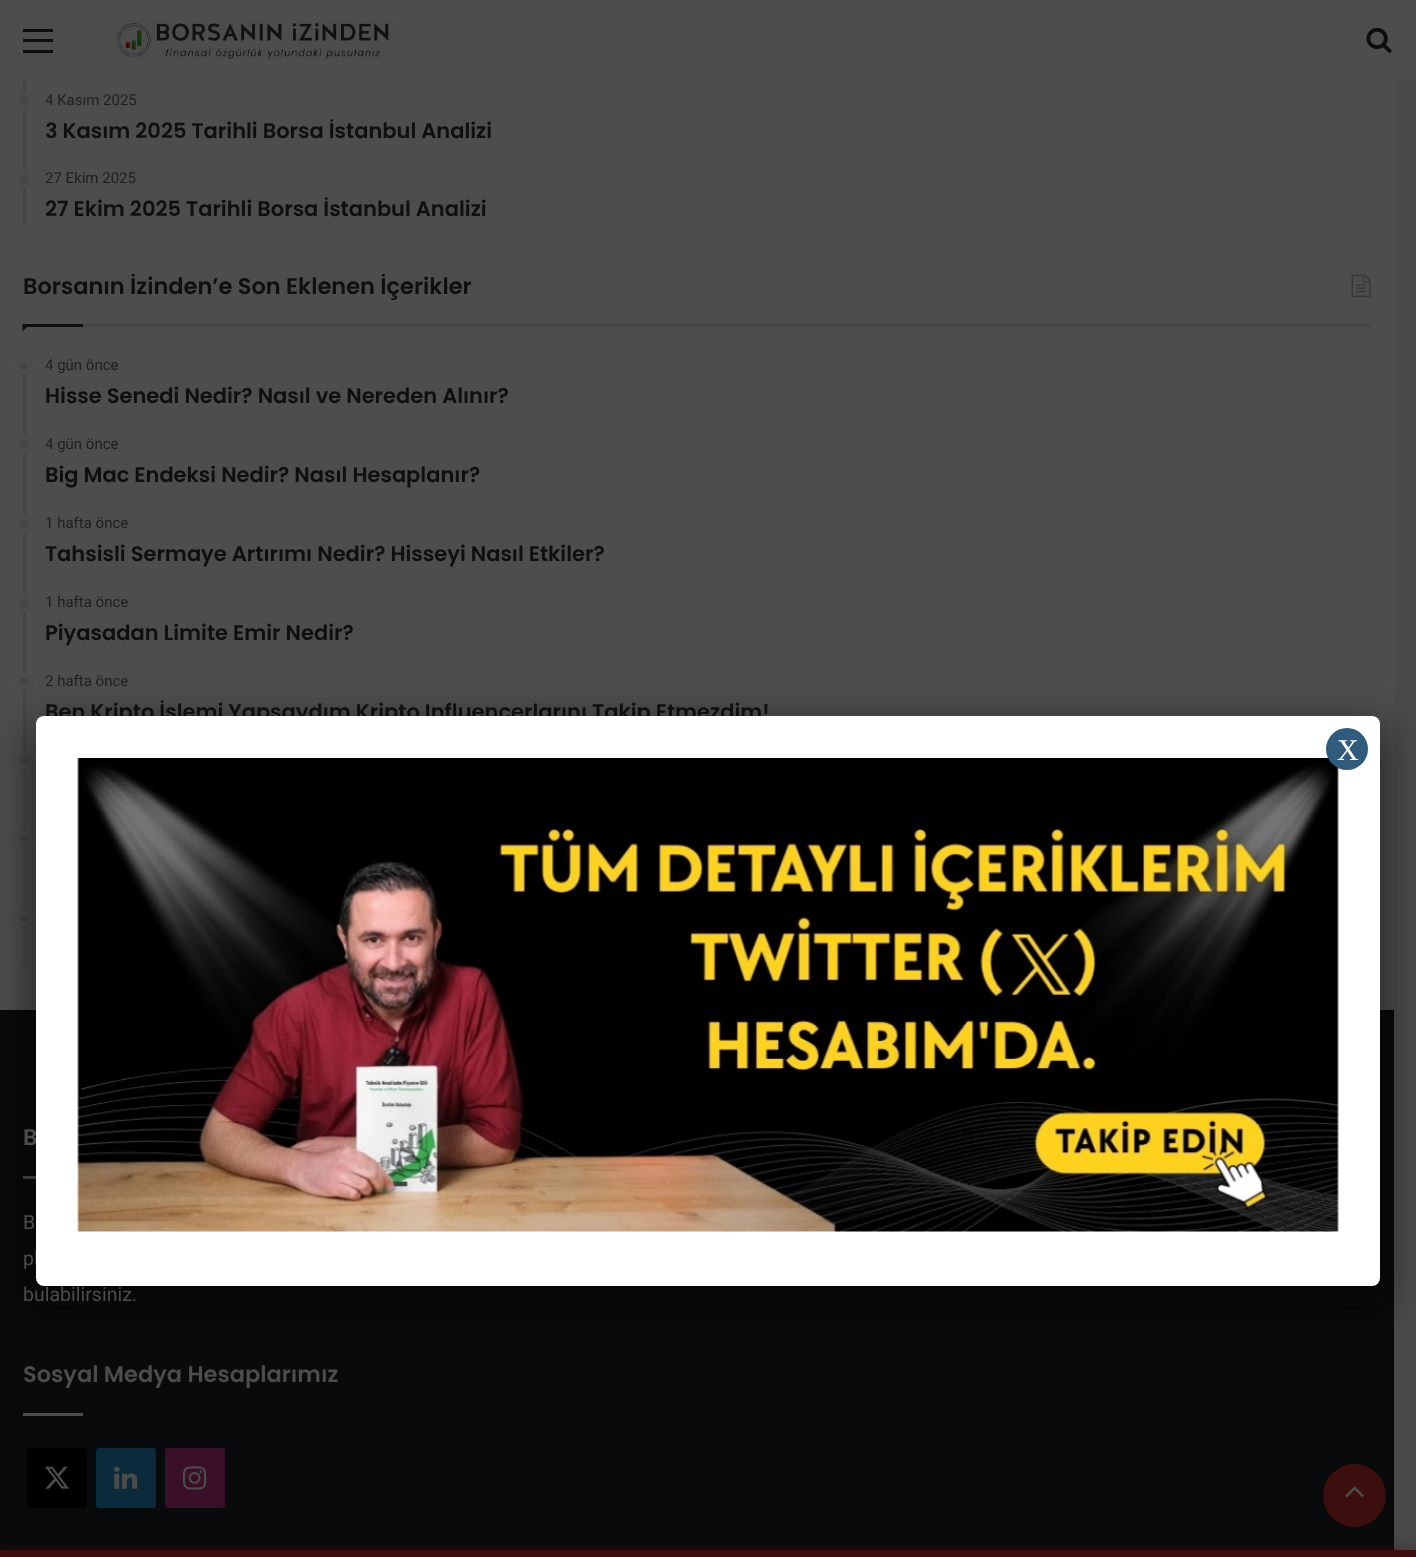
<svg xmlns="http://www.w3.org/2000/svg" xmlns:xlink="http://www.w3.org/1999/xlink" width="1416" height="1557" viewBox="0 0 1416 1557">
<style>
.cls-1{font:15px Roboto;fill:#1f1f1f}
.cls-2{font:600 21px Poppins;fill:#0e0f10}
.cls-3{font:600 22.5px Poppins;fill:#0e0f10}
.cls-4{font:600 22.5px Poppins;fill:#4c4c4c}
.cls-5{font:19.5px Roboto;fill:#4c4c4c}
.cls-6{font:30px Liberation Serif;fill:#ffffff}
</style>
<rect width="100%" height="100%" fill="#4a4a4a"/>
<rect fill="#4d4d4d" x="0" y="0" width="1394" height="1010"/>
<rect fill="#454545" x="23" y="0" width="3" height="225"/>
<circle fill="#454545" cx="24" cy="21" r="9"/>
<circle fill="none" stroke="#4d4d4d" stroke-opacity="0.8" stroke-width="5" cx="24" cy="21" r="6.5"/>
<rect fill="#4d4d4d" fill-opacity="0.95" x="20" y="0" width="1396" height="80"/>
<rect fill="#0d0e10" x="23" y="39" width="30" height="3"/>
<rect fill="#0d0e10" x="23" y="29" width="30" height="3"/>
<rect fill="#0d0e10" x="23" y="50" width="30" height="3"/>
<image xlink:href="image0.png" x="112" y="21" width="286" height="38"/>
<image xlink:href="image1.png" x="1366" y="27" width="26" height="26"/>
<circle fill="#454545" cx="24" cy="101" r="9"/>
<circle fill="none" stroke="#4d4d4d" stroke-opacity="0.8" stroke-width="5" cx="24" cy="101" r="6.5"/>
<circle fill="#454545" cx="24" cy="179" r="9"/>
<circle fill="none" stroke="#4d4d4d" stroke-opacity="0.8" stroke-width="5" cx="24" cy="179" r="6.5"/>
<rect fill="#454545" x="83" y="324" width="1288" height="3"/>
<image xlink:href="image2.png" x="1351" y="274" width="20" height="24"/>
<path fill="#0e0f10" d="M22.5 324H30L22.5 331.5Z"/>
<rect fill="#0e0f10" x="23" y="324" width="60" height="3"/>
<rect fill="#454545" x="23" y="357" width="3" height="608"/>
<circle fill="#454545" cx="24" cy="366" r="9"/>
<circle fill="none" stroke="#4d4d4d" stroke-opacity="0.8" stroke-width="5" cx="24" cy="366" r="6.5"/>
<circle fill="#454545" cx="24" cy="444" r="9"/>
<circle fill="none" stroke="#4d4d4d" stroke-opacity="0.8" stroke-width="5" cx="24" cy="444" r="6.5"/>
<circle fill="#454545" cx="24" cy="524" r="9"/>
<circle fill="none" stroke="#4d4d4d" stroke-opacity="0.8" stroke-width="5" cx="24" cy="524" r="6.5"/>
<circle fill="#454545" cx="24" cy="603" r="9"/>
<circle fill="none" stroke="#4d4d4d" stroke-opacity="0.8" stroke-width="5" cx="24" cy="603" r="6.5"/>
<circle fill="#454545" cx="24" cy="681" r="9"/>
<circle fill="none" stroke="#4d4d4d" stroke-opacity="0.8" stroke-width="5" cx="24" cy="681" r="6.5"/>
<circle fill="#454545" cx="24" cy="761" r="9"/>
<circle fill="none" stroke="#4d4d4d" stroke-opacity="0.8" stroke-width="5" cx="24" cy="761" r="6.5"/>
<circle fill="#454545" cx="24" cy="839" r="9"/>
<circle fill="none" stroke="#4d4d4d" stroke-opacity="0.8" stroke-width="5" cx="24" cy="839" r="6.5"/>
<circle fill="#454545" cx="24" cy="918" r="9"/>
<circle fill="none" stroke="#4d4d4d" stroke-opacity="0.8" stroke-width="5" cx="24" cy="918" r="6.5"/>
<rect fill="#090a0b" x="0" y="1010" width="1394" height="540"/>
<rect fill="#4c4c4c" x="23" y="1176" width="13" height="3"/>
<rect fill="#4c4c4c" x="23" y="1413" width="60" height="3"/>
<rect fill="#000000" x="27" y="1448" width="60" height="60" rx="3"/>
<image xlink:href="image3.png" x="45" y="1466" width="25" height="23"/>
<rect fill="#0b2a3b" x="96" y="1448" width="60" height="60" rx="3"/>
<image xlink:href="image4.png" x="114" y="1466" width="24" height="23"/>
<rect fill="#391027" x="165" y="1448" width="60" height="60" rx="3"/>
<image xlink:href="image5.png" x="183" y="1466" width="24" height="24"/>
<circle fill="#3c0e0e" cx="1354.5" cy="1495.5" r="31.5"/>
<image xlink:href="image6.png" x="1345" y="1486" width="19" height="12"/>
<rect fill="#020202" fill-opacity="0.5" filter="blur(19px)" x="30" y="725" width="1356" height="582" rx="14"/>
<rect fill="#3c0e0e" fill-opacity="0.7" filter="blur(7.5px)" x="0" y="1550" width="1416" height="7"/>
<rect fill="#3c0e0e" x="0" y="1550" width="1416" height="7"/>
<text class="cls-1" x="45" y="105">4 Kasım 2025</text>
<text class="cls-2" x="45" y="138">3 Kasım 2025 Tarihli Borsa İstanbul Analizi</text>
<text class="cls-1" x="45" y="183">27 Ekim 2025</text>
<text class="cls-2" x="45" y="216">27 Ekim 2025 Tarihli Borsa İstanbul Analizi</text>
<text class="cls-3" x="23" y="294">Borsanın İzinden’e Son Eklenen İçerikler</text>
<text class="cls-1" x="45" y="370">4 gün önce</text>
<text class="cls-2" x="45" y="403">Hisse Senedi Nedir? Nasıl ve Nereden Alınır?</text>
<text class="cls-1" x="45" y="449">4 gün önce</text>
<text class="cls-2" x="45" y="482">Big Mac Endeksi Nedir? Nasıl Hesaplanır?</text>
<text class="cls-1" x="45" y="528">1 hafta önce</text>
<text class="cls-2" x="45" y="561">Tahsisli Sermaye Artırımı Nedir? Hisseyi Nasıl Etkiler?</text>
<text class="cls-1" x="45" y="607">1 hafta önce</text>
<text class="cls-2" x="45" y="640">Piyasadan Limite Emir Nedir?</text>
<text class="cls-1" x="45" y="686">2 hafta önce</text>
<text class="cls-2" x="45" y="719">Ben Kripto İşlemi Yapsaydım Kripto Influencerlarını Takip Etmezdim!</text>
<text class="cls-4" x="23" y="1145">B</text>
<text class="cls-5"><tspan x="23" y="1229" word-spacing="1">B</tspan><tspan x="23" y="1265" word-spacing="7">pl</tspan><tspan x="23" y="1301">bulabilirsiniz.</tspan></text>
<text class="cls-4" x="23" y="1382">Sosyal Medya Hesaplarımız</text>
<rect fill="#ffffff" x="36" y="716" width="1344" height="570" rx="8"/>
<image xlink:href="image7.png" x="77" y="758" width="1262" height="474"/>
<circle fill="#315b7c" cx="1347" cy="749" r="21"/>
<text class="cls-6" x="1337" y="760">X</text>
</svg>
